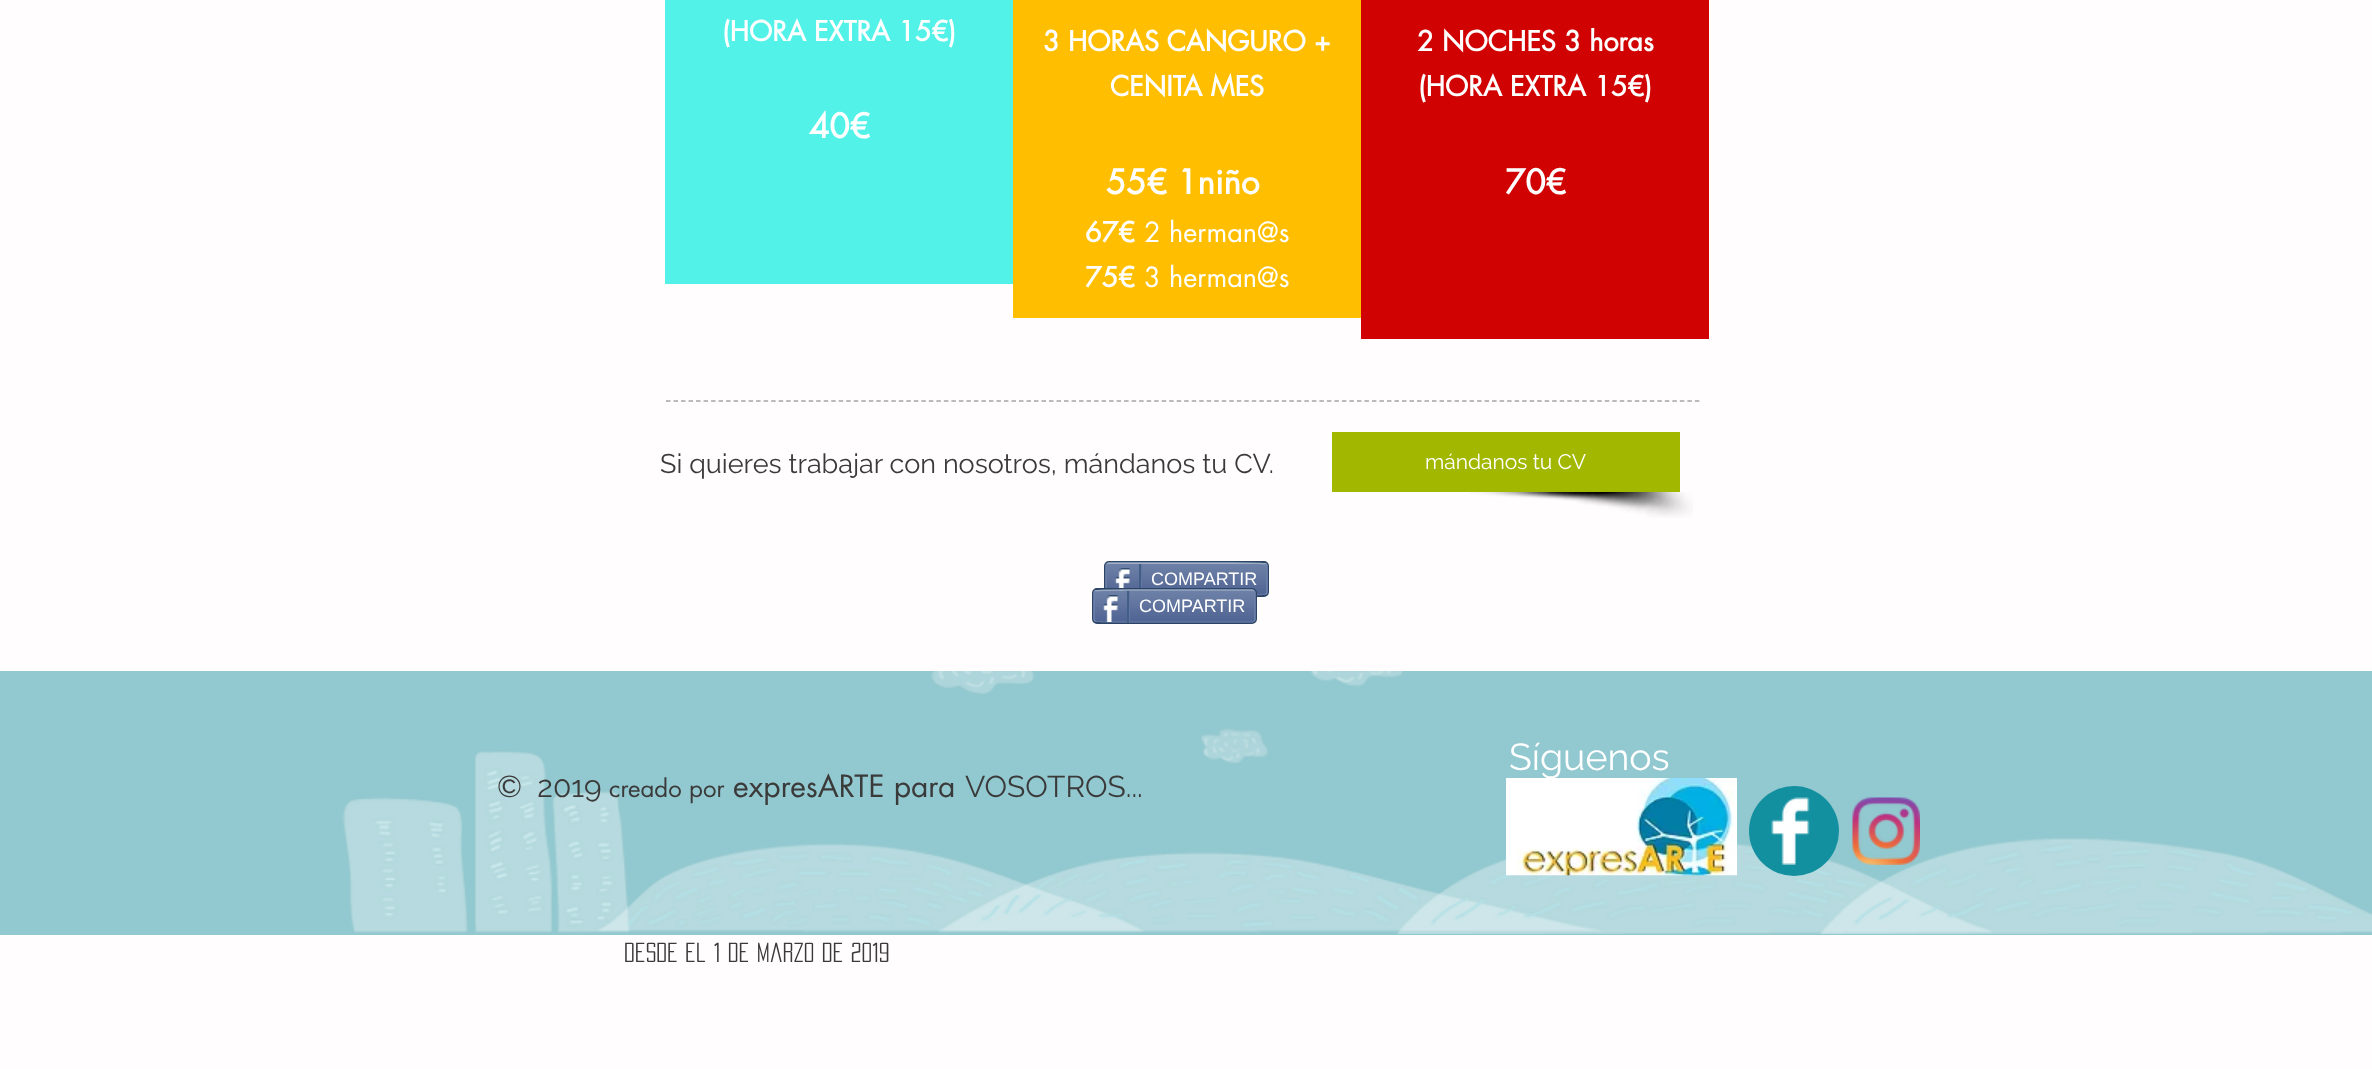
<svg xmlns="http://www.w3.org/2000/svg" xmlns:xlink="http://www.w3.org/1999/xlink" width="2372" height="1069" viewBox="0 0 2372 1069">
<style>
.cls-1{font:bold 27px futura;fill:#ffffff}
.cls-2{font:bold 33px futura;fill:#ffffff}
.cls-3{font:27px futura;fill:#ffffff}
.cls-4{font:27px Raleway;fill:#3b3a3a}
.cls-5{font:21px Raleway;fill:#ffffff}
.cls-6{font:18px Liberation Sans;fill:#ffffff}
.cls-7{font:37.5px Raleway;fill:#ffffff}
.cls-8{font:30px Raleway;fill:#3b3a3a}
.cls-9{font:24px futura;fill:#3b3a3a}
.cls-10{font:30px futura;fill:#3b3a3a}
.cls-11{font:24px 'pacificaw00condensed';fill:#3b3a3a}
</style>
<rect width="100%" height="100%" fill="#fffdfd"/>
<rect fill="#52f2e8" x="665" y="0" width="348" height="284"/>
<rect fill="#ffbf00" x="1013" y="0" width="348" height="318"/>
<rect fill="#d10202" x="1361" y="0" width="348" height="339"/>
<path fill="none" stroke="#a6a4a4" stroke-width="1.5" stroke-dasharray="4.5 3.01" d="M666 401H1699.5"/>
<rect fill="#a2b800" x="1332" y="432" width="348" height="60"/>
<image xlink:href="image0.png" x="1470" y="492" width="223" height="26"/>
<rect fill="none" stroke="#2d4565" stroke-width="2" x="1105" y="562" width="163" height="34" rx="4"/>
<image xlink:href="image1.png" x="1105" y="563" width="163" height="32"/>
<path fill="none" stroke="#9aabc6" stroke-width="1.5" d="M1107 564L1108.5 563H1212.5C1216 563 1264.5 562.5 1266 564"/>
<path fill="none" stroke="#6f83ad" stroke-width="1.5" d="M1266 564C1266.5 564.5 1267 565 1267 565.5V592.5C1267 593 1266.5 593.5 1266 594"/>
<path fill="none" stroke="#6176a3" stroke-width="1.5" d="M1266 594C1264.5 595.5 1216 595 1212.5 595H1108.5L1107 594"/>
<path fill="none" stroke="#6f83ad" stroke-width="1.5" d="M1107 594C1106.5 593.5 1106 593 1106 592.5V565.5C1106 565 1106.5 564.5 1107 564"/>
<image xlink:href="image2.png" x="1114" y="568" width="16" height="23"/>
<rect fill="#425e85" x="1139" y="564" width="2" height="32"/>
<rect fill="#6176a3" x="1141" y="564" width="1" height="30"/>
<rect fill="none" stroke="#2d4565" stroke-width="2" x="1093" y="589" width="163" height="34" rx="4"/>
<image xlink:href="image3.png" x="1093" y="590" width="163" height="32"/>
<path fill="none" stroke="#9aabc6" stroke-width="1.5" d="M1095 591C1096.5 589.5 1145 590 1148.5 590H1252.5L1254 591"/>
<path fill="none" stroke="#6f83ad" stroke-width="1.5" d="M1254 591C1254.5 591.5 1255 592 1255 592.5V619.5C1255 620 1254.5 620.5 1254 621"/>
<path fill="none" stroke="#6176a3" stroke-width="1.5" d="M1254 621L1252.5 622H1148.5C1145 622 1096.5 622.5 1095 621"/>
<path fill="none" stroke="#6f83ad" stroke-width="1.5" d="M1095 621C1094.5 620.5 1094 620 1094 619.5V592.5C1094 592 1094.5 591.5 1095 591"/>
<image xlink:href="image4.png" x="1102" y="595" width="16" height="27"/>
<rect fill="#425e85" x="1127" y="591" width="2" height="32"/>
<rect fill="#6176a3" x="1129" y="591" width="1" height="30"/>
<rect fill="#92c8cf" x="0" y="671" width="2372" height="264"/>
<image xlink:href="image5.png" x="342" y="671" width="2030" height="263"/>
<image xlink:href="image6.png" x="1506" y="778" width="231" height="98"/>
<circle fill="#1390a0" cx="1794" cy="831" r="45"/>
<image xlink:href="image7.png" x="1771" y="797" width="39" height="68"/>
<image xlink:href="image8.png" x="1852" y="797" width="68" height="68"/>
<text class="cls-1" x="722" y="41">(HORA EXTRA 15€)</text>
<text class="cls-2" x="809" y="138">40€</text>
<text class="cls-1" x="1043" y="51">3 HORAS CANGURO +</text>
<text class="cls-1" x="1110" y="96">CENITA MES</text>
<text class="cls-2" x="1106" y="194">55€ 1niño</text>
<text class="cls-1" x="1085" y="242">67€</text>
<text class="cls-3" x="1144" y="242">2 herman@s</text>
<text class="cls-1" x="1085" y="287">75€</text>
<text class="cls-3" x="1144" y="287">3 herman@s</text>
<text class="cls-1" x="1417" y="51">2 NOCHES 3 horas</text>
<text class="cls-1" x="1418" y="96">(HORA EXTRA 15€)</text>
<text class="cls-2" x="1505" y="194">70€</text>
<text class="cls-4" x="660" y="473">Si quieres trabajar con nosotros, mándanos tu CV.</text>
<text class="cls-5" x="1425" y="469">mándanos tu CV</text>
<text class="cls-6" x="1151" y="585">COMPARTIR</text>
<text class="cls-6" x="1139" y="612">COMPARTIR</text>
<text class="cls-7" x="1509" y="770">Síguenos</text>
<text class="cls-8" xml:space="preserve" x="497" y="797">©  2019</text>
<text class="cls-9" x="609" y="797">creado por</text>
<text class="cls-10" x="733" y="797">expresARTE para</text>
<text class="cls-8" x="965" y="797">VOSOTROS...</text>
<text class="cls-11" x="624" y="962">desde el 1 de Marzo de 2019</text>
</svg>
